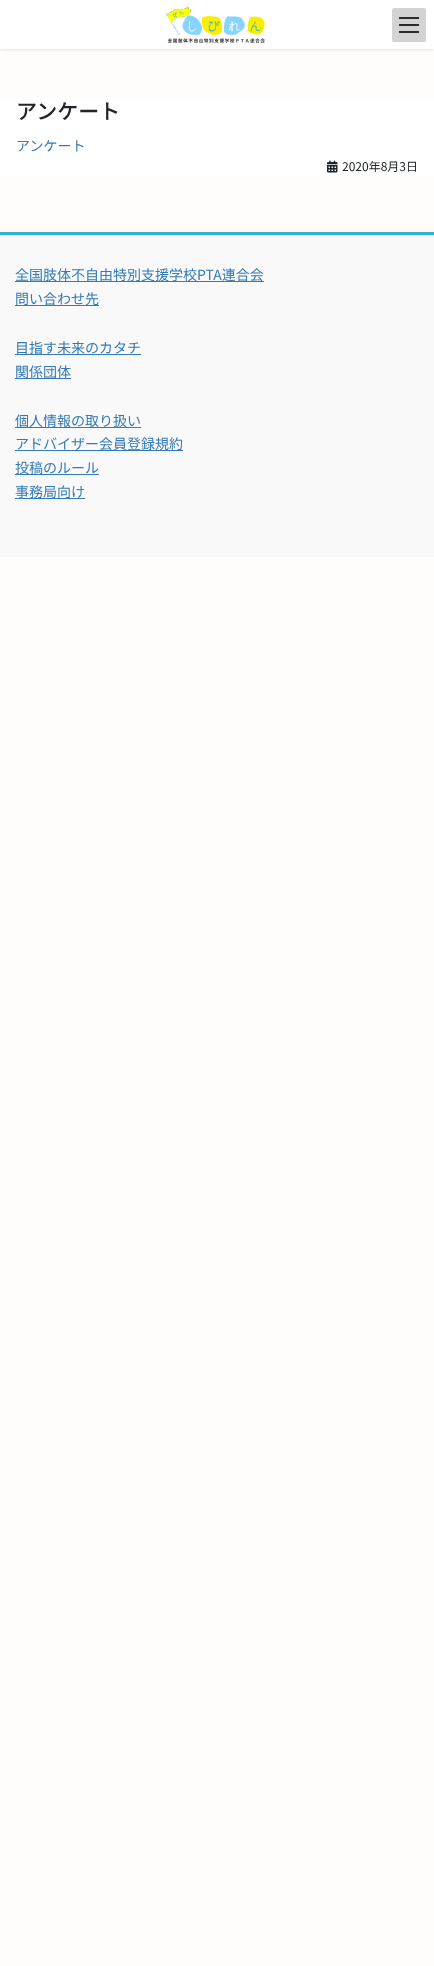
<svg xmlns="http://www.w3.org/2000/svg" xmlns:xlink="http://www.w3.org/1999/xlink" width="434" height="1966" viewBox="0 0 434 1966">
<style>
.cls-1{font:500 21px Noto Sans JP;fill:#212529}
.cls-2{font:14px Noto Sans JP;fill:#337ab7}
.cls-3{font:12px Noto Sans JP;fill:#212529}
</style>
<rect width="100%" height="100%" fill="#fffcf9"/>
<rect fill="#000000" fill-opacity="0.1" filter="blur(1.5px)" x="0" y="1" width="434" height="49"/>
<rect fill="#ffffff" x="0" y="0" width="434" height="49"/>
<image xlink:href="image0.png" x="166" y="6" width="99" height="37"/>
<rect fill="#d3d3d3" x="392" y="8" width="34" height="34" rx="2"/>
<rect fill="#2a2a2a" x="399" y="17" width="20" height="2"/>
<rect fill="#2a2a2a" x="399" y="24" width="20" height="2"/>
<rect fill="#2a2a2a" x="399" y="31" width="20" height="2"/>
<rect fill="#ffffff" x="0" y="98" width="434" height="78"/>
<image xlink:href="image1.png" x="327" y="160" width="11" height="13"/>
<rect fill="#f9f9f9" x="0" y="235" width="434" height="322"/>
<rect fill="#33b1cc" x="0" y="232" width="434" height="3"/>
<rect fill="#337ab7" x="15" y="281" width="249" height="1"/>
<rect fill="#337ab7" x="15" y="305" width="84" height="1"/>
<rect fill="#337ab7" x="15" y="354" width="126" height="1"/>
<rect fill="#337ab7" x="15" y="378" width="56" height="1"/>
<rect fill="#337ab7" x="15" y="427" width="126" height="1"/>
<rect fill="#337ab7" x="15" y="450" width="168" height="1"/>
<rect fill="#337ab7" x="15" y="474" width="84" height="1"/>
<rect fill="#337ab7" x="15" y="498" width="70" height="1"/>
<text class="cls-1" x="16" y="119">アンケート</text>
<text class="cls-2" x="16" y="151">アンケート</text>
<text class="cls-3" x="342" y="171">2020年8月3日</text>
<text class="cls-2"><tspan x="15" y="280">全国肢体不自由特別支援学校PTA連合会</tspan><tspan x="15" y="304">問い合わせ先</tspan></text>
<text class="cls-2"><tspan x="15" y="353">目指す未来のカタチ</tspan><tspan x="15" y="377">関係団体</tspan></text>
<text class="cls-2"><tspan x="15" y="426">個人情報の取り扱い</tspan><tspan x="15" y="449">アドバイザー会員登録規約</tspan><tspan x="15" y="473">投稿のルール</tspan><tspan x="15" y="497">事務局向け</tspan></text>
</svg>
